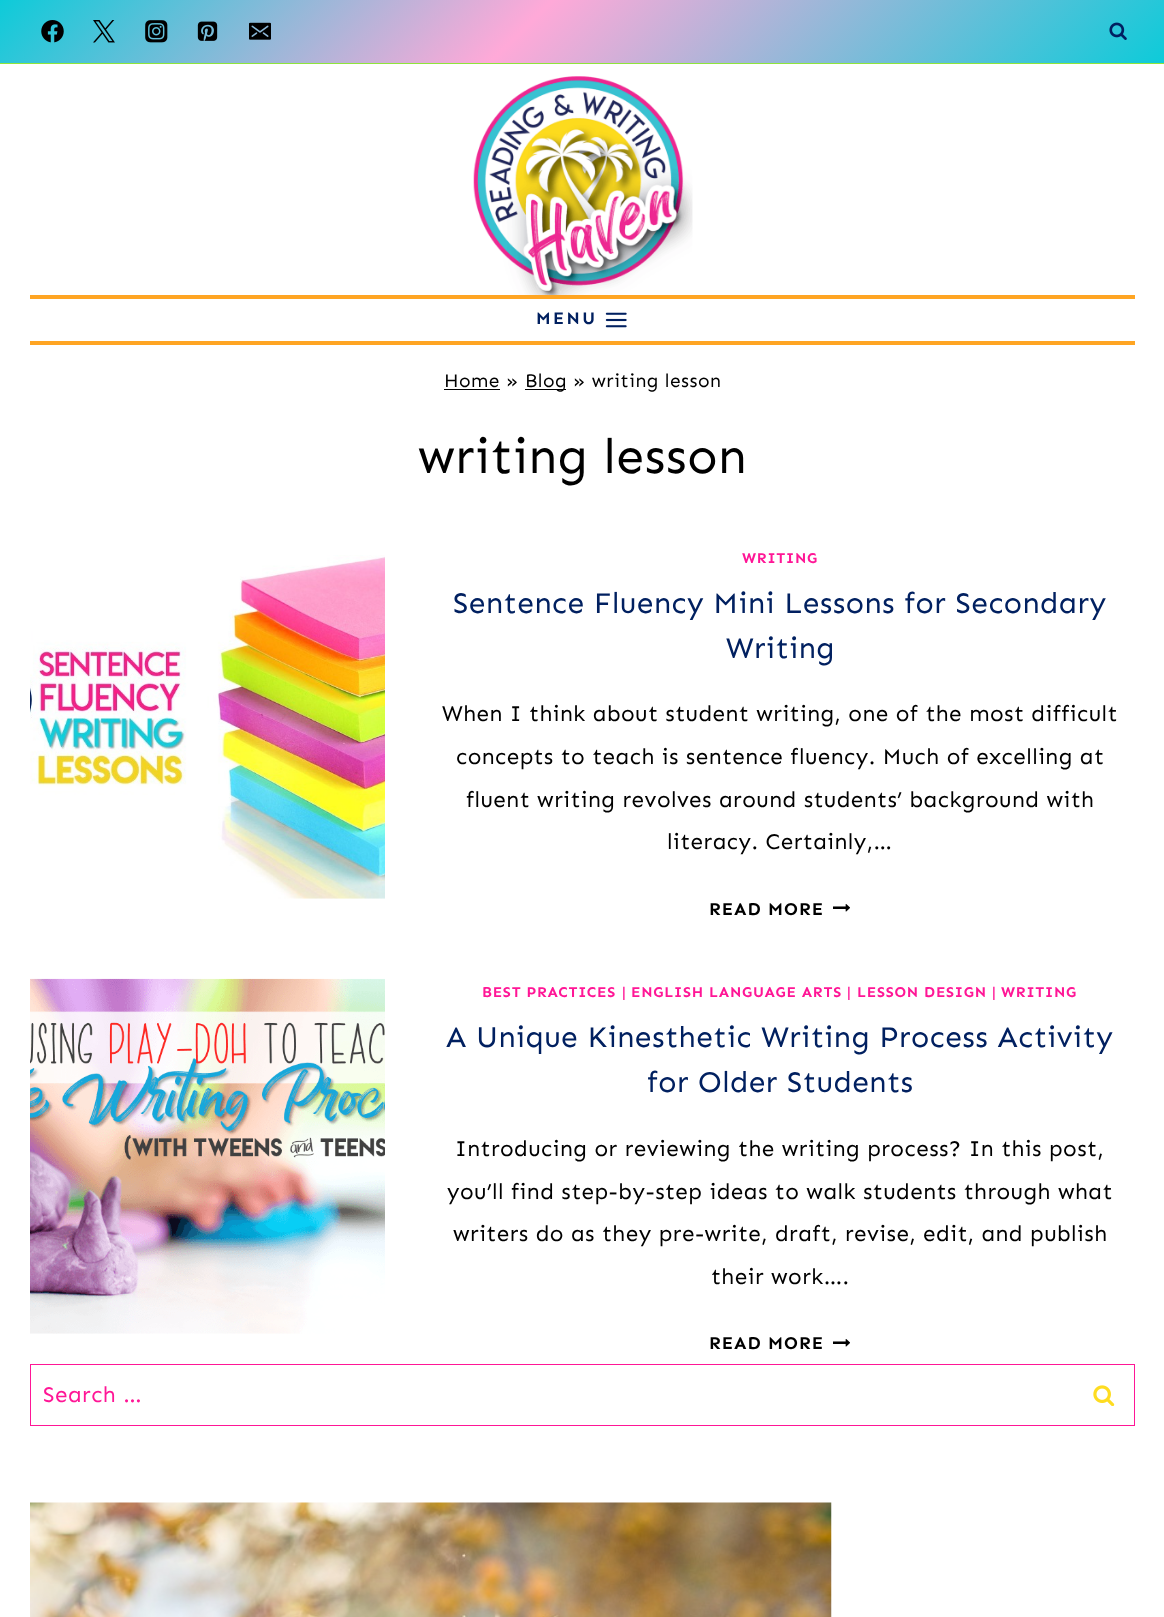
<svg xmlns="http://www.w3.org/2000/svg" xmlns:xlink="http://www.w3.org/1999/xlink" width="1164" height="1617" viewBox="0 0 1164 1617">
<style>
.cls-1{font:bold 17.5px Sen;letter-spacing:2.5px;fill:#012060}
.cls-2{font:19.1px Sen;letter-spacing:0.45px;fill:#000000}
.cls-3{font:50px Sen;letter-spacing:0.45px;fill:#000000}
.cls-4{font:bold 15px Sen;letter-spacing:0.75px;fill:#ff1696}
.cls-5{font:30px Sen;letter-spacing:0.45px;fill:#012060}
.cls-6{font:22.5px Sen;letter-spacing:0.45px;fill:#000000}
.cls-7{font:bold 18px Sen;letter-spacing:1px;fill:#000000}
.cls-8{font:600 15px Sen;letter-spacing:0.75px;fill:#ff1696}
.cls-9{font:22.5px Sen;letter-spacing:0.45px;fill:#ff1696}
</style>
<defs>
<linearGradient id="g1" gradientUnits="userSpaceOnUse" x1="276" y1="-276" x2="889" y2="338"><stop offset="0" stop-color="#0dcbd9"/><stop offset="0.45" stop-color="#ffa9d8"/><stop offset="1" stop-color="#0dcbd9"/></linearGradient>
</defs>
<rect width="100%" height="100%" fill="#ffffff"/>
<rect fill="url(#g1)" x="0" y="0" width="1164" height="63"/>
<rect fill="#8fe53a" x="0" y="63" width="1164" height="1"/>
<image xlink:href="image0.png" x="41" y="20" width="23" height="23"/>
<image xlink:href="image1.png" x="93" y="20" width="22" height="23"/>
<image xlink:href="image2.png" x="145" y="20" width="23" height="23"/>
<image xlink:href="image3.png" x="197" y="21" width="21" height="20"/>
<image xlink:href="image4.png" x="249" y="22" width="22" height="18"/>
<image xlink:href="image5.png" x="1109" y="22" width="18" height="18"/>
<image xlink:href="image6.png" x="473" y="76" width="220" height="219"/>
<rect fill="#ffa523" x="30" y="295" width="1105" height="4"/>
<rect fill="#ffa523" x="30" y="341" width="1105" height="4"/>
<image xlink:href="image7.png" x="605" y="312" width="22" height="16"/>
<rect fill="#000000" x="444" y="389" width="56" height="1"/>
<rect fill="#000000" x="525" y="389" width="41" height="1"/>
<image xlink:href="image8.png" x="30" y="555" width="355" height="344"/>
<image xlink:href="image9.png" x="833" y="904" width="17" height="8"/>
<image xlink:href="image10.png" x="30" y="978" width="355" height="356"/>
<image xlink:href="image9.png" x="833" y="1339" width="17" height="8"/>
<rect fill="none" stroke="#ff1696" x="30.5" y="1364.5" width="1104" height="61"/>
<image xlink:href="image11.png" x="1093" y="1385" width="22" height="21"/>
<image xlink:href="image12.png" x="30" y="1502" width="802" height="115"/>
<text class="cls-1" x="536" y="324">MENU</text>
<text class="cls-2" x="444" y="387">Home »</text>
<text class="cls-2" x="525" y="387">Blog » writing lesson</text>
<text class="cls-3" x="418" y="473">writing lesson</text>
<text class="cls-4" x="742" y="563">WRITING</text>
<text class="cls-5" x="453" y="613">Sentence Fluency Mini Lessons for Secondary</text>
<text class="cls-5" x="726" y="658">Writing</text>
<text class="cls-6" x="442" y="721">When I think about student writing, one of the most difficult</text>
<text class="cls-6" x="456" y="764">concepts to teach is sentence fluency. Much of excelling at</text>
<text class="cls-6" x="466" y="807">fluent writing revolves around students’ background with</text>
<text class="cls-6" x="667" y="849">literacy. Certainly,…</text>
<text class="cls-7" x="709" y="915">READ MORE</text>
<text class="cls-4" x="482" y="997">BEST PRACTICES</text>
<text class="cls-8" x="622" y="997">|</text>
<text class="cls-4" x="631" y="997">ENGLISH LANGUAGE ARTS</text>
<text class="cls-8" x="847" y="997">|</text>
<text class="cls-4" x="857" y="997">LESSON DESIGN</text>
<text class="cls-8" x="992" y="997">|</text>
<text class="cls-4" x="1001" y="997">WRITING</text>
<text class="cls-5" x="446" y="1047">A Unique Kinesthetic Writing Process Activity</text>
<text class="cls-5" x="647" y="1092">for Older Students</text>
<text class="cls-6" x="455" y="1156">Introducing or reviewing the writing process? In this post,</text>
<text class="cls-6" x="447" y="1199">you’ll find step-by-step ideas to walk students through what</text>
<text class="cls-6" x="453" y="1241">writers do as they pre-write, draft, revise, edit, and publish</text>
<text class="cls-6" x="711" y="1284">their work….</text>
<text class="cls-7" x="709" y="1349">READ MORE</text>
<text class="cls-9" x="43" y="1402">Search …</text>
</svg>
